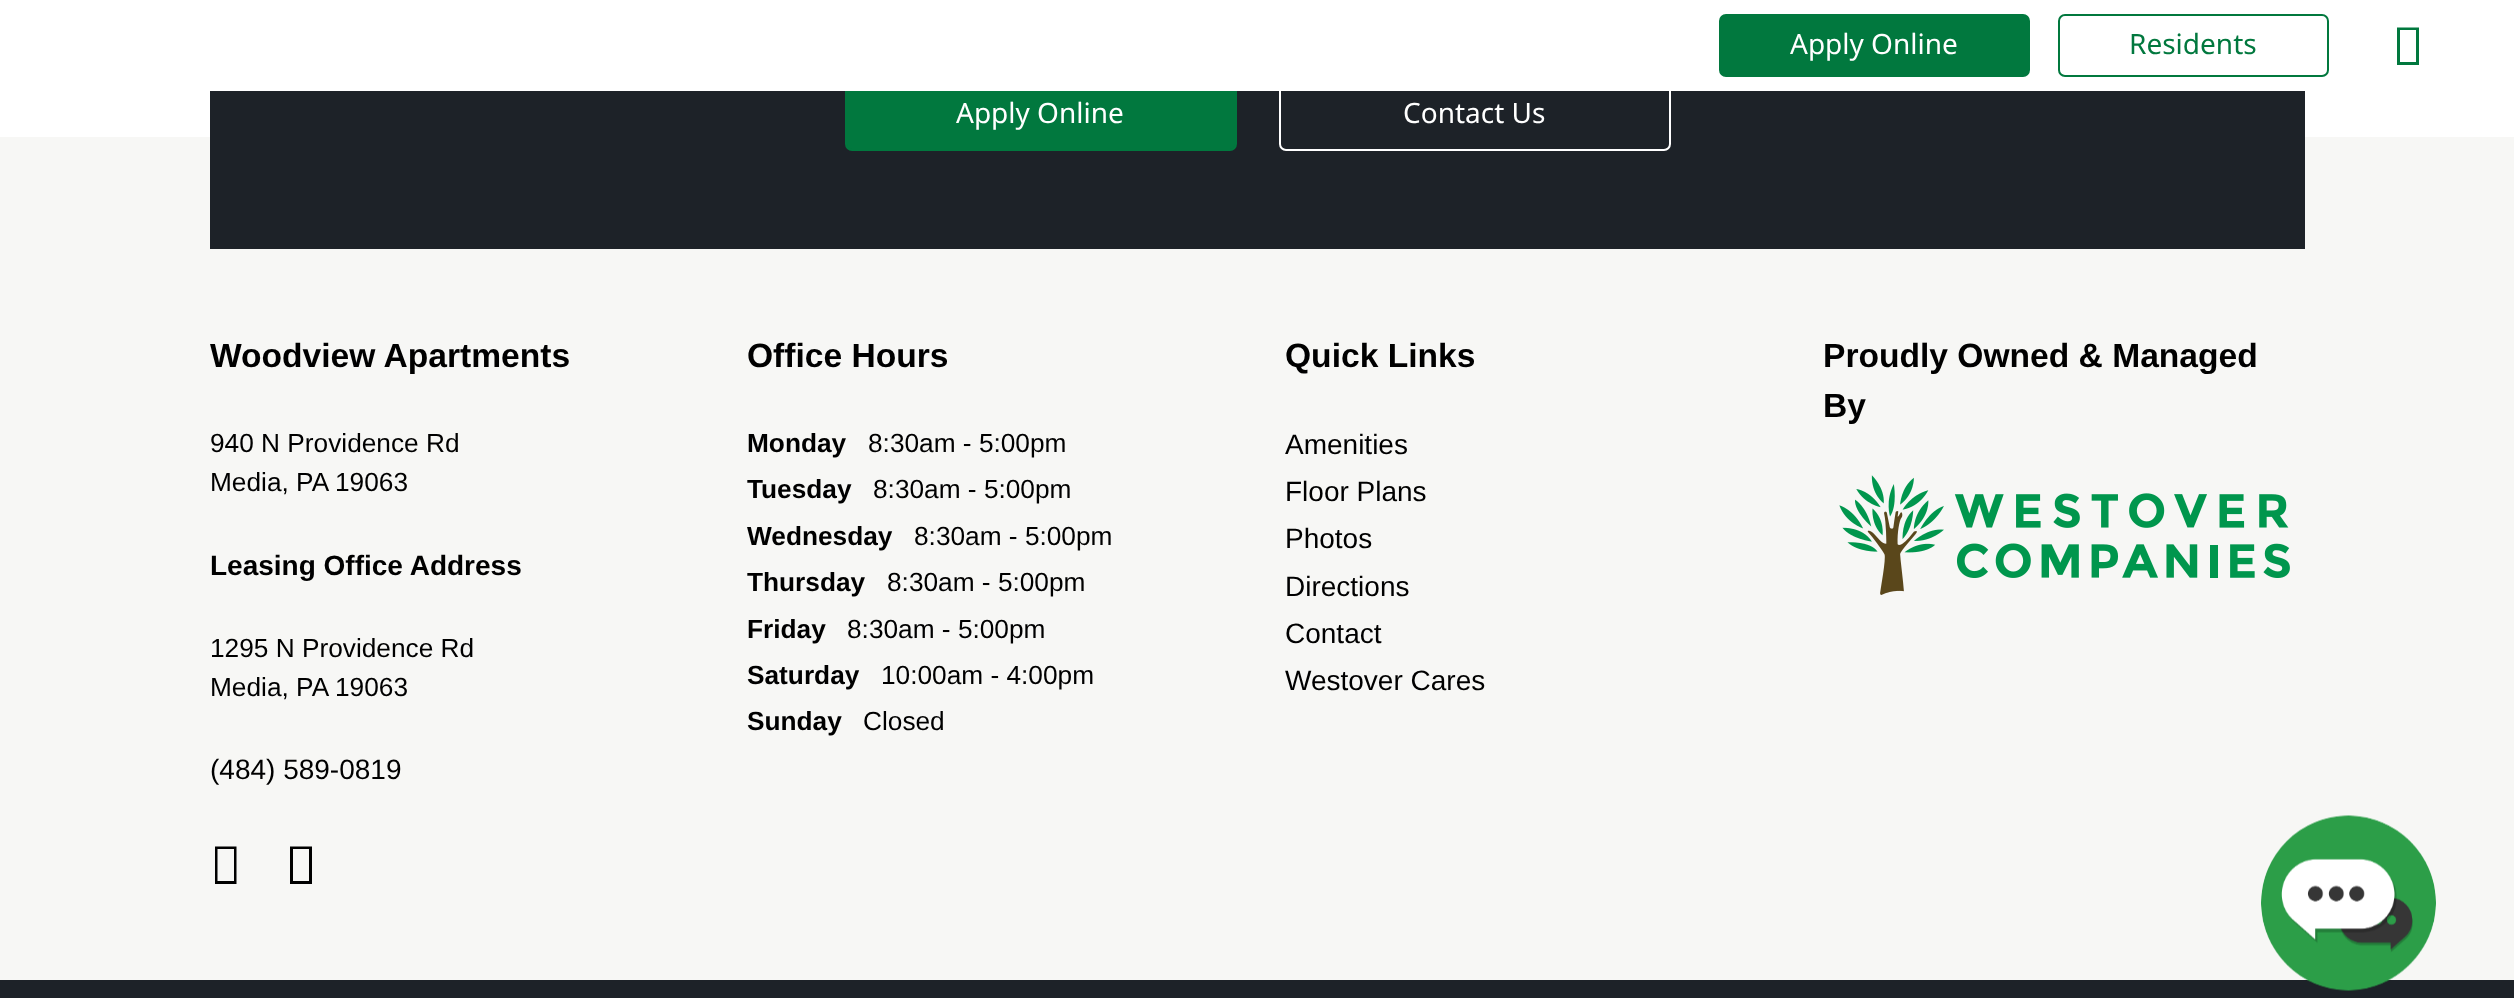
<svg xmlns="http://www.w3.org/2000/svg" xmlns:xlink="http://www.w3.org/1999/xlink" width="2514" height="998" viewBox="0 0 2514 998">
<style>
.cls-1{font:28px Noto Sans;fill:#ffffff}
.cls-2{font:28px Noto Sans;fill:#01783e}
.cls-3{font:bold 33.6px Liberation Sans;fill:#000000}
.cls-4{font:26.25px Liberation Sans;fill:#000000}
.cls-5{font:bold 28px Liberation Sans;fill:#000000}
.cls-6{font:28px Liberation Sans;fill:#000000}
.cls-7{font:bold 26.25px Liberation Sans;fill:#000000}
</style>
<rect width="100%" height="100%" fill="#ffffff"/>
<rect fill="#f7f7f5" x="0" y="137" width="2514" height="843"/>
<rect fill="#1d2228" x="210" y="91" width="2095" height="158"/>
<rect fill="#01783e" stroke="#01783e" stroke-width="2" x="846" y="78" width="390" height="72" rx="6"/>
<rect fill="#ffffff" x="845" y="77" width="392" height="14"/>
<rect fill="#01783e" stroke="#01783e" stroke-width="2" x="1720" y="15" width="309" height="61" rx="6"/>
<rect fill="none" stroke="#01783e" stroke-width="2" x="2059" y="15" width="269" height="61" rx="6"/>
<path fill="#01783e" d="M2397 65V27.5H2419V65ZM2400 62H2416V30H2400Z"/>
<rect fill="none" stroke="#ffffff" stroke-width="2" x="1280" y="78" width="390" height="72" rx="6"/>
<path fill="#000000" d="M215 884V846.5H236.5V884ZM217.5 881H234V849H217.5Z"/>
<path fill="#000000" d="M290 884V846.5H312V884ZM293 881H309V849H293Z"/>
<image xlink:href="image0.png" x="1839" y="475" width="451" height="120"/>
<rect fill="#1d2228" x="0" y="980" width="2514" height="18"/>
<image xlink:href="image1.png" x="2261" y="815" width="175" height="176"/>
<text class="cls-1" x="1790" y="54">Apply Online</text>
<text class="cls-2" x="2129" y="54">Residents</text>
<text class="cls-1" x="956" y="123">Apply Online</text>
<text class="cls-1" x="1403" y="123">Contact Us</text>
<text class="cls-3" x="210" y="367">Woodview Apartments</text>
<text class="cls-4"><tspan x="210" y="452">940 N Providence Rd</tspan><tspan x="210" y="491">Media, PA 19063</tspan></text>
<text class="cls-5" x="210" y="575">Leasing Office Address</text>
<text class="cls-4"><tspan x="210" y="657">1295 N Providence Rd</tspan><tspan x="210" y="696">Media, PA 19063</tspan></text>
<text class="cls-6" x="210" y="779">(484) 589-0819</text>
<text class="cls-3" x="747" y="367">Office Hours</text>
<text class="cls-7" x="747" y="452">Monday</text>
<text class="cls-4" x="868" y="452">8:30am - 5:00pm</text>
<text class="cls-7" x="747" y="498">Tuesday</text>
<text class="cls-4" x="873" y="498">8:30am - 5:00pm</text>
<text class="cls-7" x="747" y="545">Wednesday</text>
<text class="cls-4" x="914" y="545">8:30am - 5:00pm</text>
<text class="cls-7" x="747" y="591">Thursday</text>
<text class="cls-4" x="887" y="591">8:30am - 5:00pm</text>
<text class="cls-7" x="747" y="638">Friday</text>
<text class="cls-4" x="847" y="638">8:30am - 5:00pm</text>
<text class="cls-7" x="747" y="684">Saturday</text>
<text class="cls-4" x="881" y="684">10:00am - 4:00pm</text>
<text class="cls-7" x="747" y="730">Sunday</text>
<text class="cls-4" x="863" y="730">Closed</text>
<text class="cls-3" x="1285" y="367">Quick Links</text>
<text class="cls-6"><tspan x="1285" y="454">Amenities</tspan><tspan x="1285" y="501">Floor Plans</tspan><tspan x="1285" y="548">Photos</tspan><tspan x="1285" y="596">Directions</tspan><tspan x="1285" y="643">Contact</tspan><tspan x="1285" y="690">Westover Cares</tspan></text>
<text class="cls-3"><tspan x="1823" y="367">Proudly Owned &amp; Managed</tspan><tspan x="1823" y="417">By</tspan></text>
</svg>
